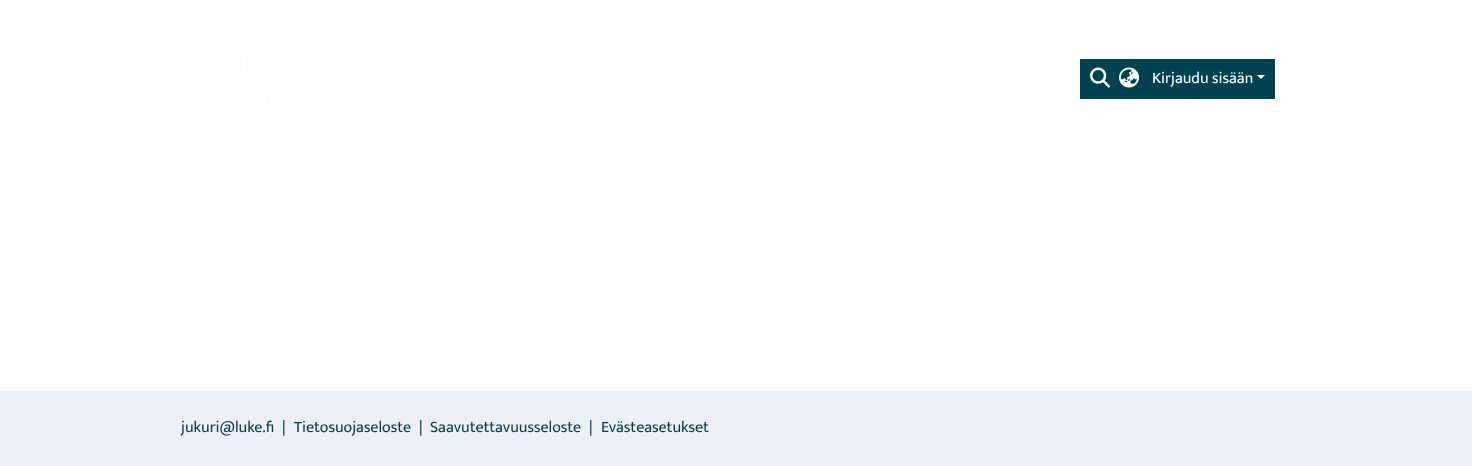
<svg xmlns="http://www.w3.org/2000/svg" xmlns:xlink="http://www.w3.org/1999/xlink" width="1472" height="466" viewBox="0 0 1472 466">
<style>
.cls-1{font:16px Mukta;fill:#ffffff}
.cls-2{font:16px Mukta;fill:#004152}
</style>
<rect width="100%" height="100%" fill="#ffffff"/>
<image xlink:href="image0.png" x="207" y="36" width="71" height="67"/>
<rect fill="#004152" x="1080" y="59" width="195" height="40"/>
<image xlink:href="image1.png" x="1090" y="67" width="20" height="21"/>
<image xlink:href="image2.png" x="1119" y="67" width="20" height="21"/>
<path fill="#ffffff" d="M1257 75H1265L1261 79Z"/>
<rect fill="#eceff5" x="0" y="390" width="1472" height="76"/>
<text class="cls-1" x="1152" y="83">Kirjaudu sisään</text>
<text class="cls-2" x="181" y="432">jukuri@luke.fi</text>
<text class="cls-2" x="282" y="432">|</text>
<text class="cls-2" x="294" y="432">Tietosuojaseloste</text>
<text class="cls-2" x="419" y="432">|</text>
<text class="cls-2" x="430" y="432">Saavutettavuusseloste</text>
<text class="cls-2" x="589" y="432">|</text>
<text class="cls-2" x="601" y="432">Evästeasetukset</text>
</svg>
